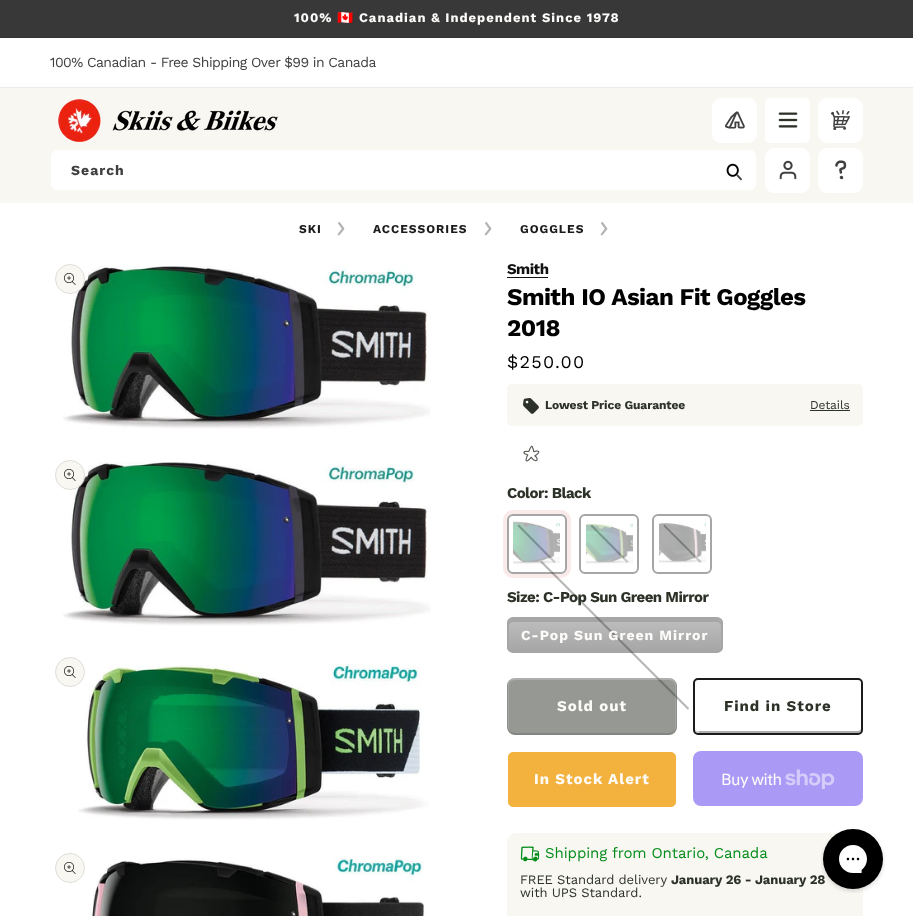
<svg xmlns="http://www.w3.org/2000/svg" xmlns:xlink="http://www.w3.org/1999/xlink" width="913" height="916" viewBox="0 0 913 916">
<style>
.cls-1{font:bold 13px Work Sans;letter-spacing:1px;fill:#fdfcfa}
.cls-2{font:bold 13px Noto Color Emoji;letter-spacing:1px;fill:#fdfcfa}
.cls-3{font:14px Work Sans;letter-spacing:-0.55px;fill:#404040}
.cls-4{font:bold 14px Work Sans;letter-spacing:1px;fill:#404040}
.cls-5{font:bold 12px Work Sans;letter-spacing:1px;fill:#1b1b1b}
.cls-6{font:bold 15px Work Sans;letter-spacing:-0.55px;fill:#121212}
.cls-7{font:bold 24px Work Sans;letter-spacing:-0.55px;fill:#000000}
.cls-8{font:18px Work Sans;letter-spacing:1.25px;fill:#000000}
.cls-9{font:bold 12px Work Sans;letter-spacing:-0.1px;fill:#2c3227}
.cls-10{font:12px Work Sans;letter-spacing:-0.1px;fill:#2c3227}
.cls-11{font:bold 15px Work Sans;letter-spacing:-0.55px;fill:#2c3227}
.cls-12{font:bold 14px Work Sans;letter-spacing:1px;fill:#fdfcfa}
.cls-13{font:bold 15px Work Sans;letter-spacing:1px;fill:#fdfcfa}
.cls-14{font:bold 15px Work Sans;letter-spacing:1px;fill:#2c3227}
.cls-15{font:16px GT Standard;letter-spacing:-0.55px;fill:#fdfcfa}
.cls-16{font:15px Work Sans;letter-spacing:-0.1px;fill:#058d1b}
.cls-17{font:13px Work Sans;letter-spacing:-0.1px;fill:#2c3227}
.cls-18{font:bold 13px Work Sans;letter-spacing:-0.1px;fill:#2c3227}
</style>
<defs>
<clipPath id="clip1"><rect x="507" y="617" width="216" height="36" rx="6"/></clipPath>
<linearGradient id="g1" gradientUnits="userSpaceOnUse" x1="615" y1="619" x2="615" y2="651"><stop offset="0" stop-color="#bebebe"/><stop offset="1" stop-color="#a6a6a6"/></linearGradient>
</defs>
<rect width="100%" height="100%" fill="#f8f7f2"/>
<rect fill="#383838" x="0" y="0" width="913" height="37"/>
<rect fill="#343434" x="0" y="37" width="913" height="1"/>
<rect fill="#ffffff" x="0" y="38" width="913" height="49"/>
<rect fill="#ebebeb" x="0" y="87" width="913" height="1"/>
<image xlink:href="image0.png" x="58" y="99" width="220" height="43"/>
<rect fill="#ffffff" x="712" y="98" width="45" height="45" rx="9"/>
<image xlink:href="image1.png" x="725" y="111" width="20" height="18"/>
<rect fill="#ffffff" x="765" y="98" width="45" height="45" rx="5"/>
<image xlink:href="image2.png" x="778" y="112" width="20" height="16"/>
<rect fill="#ffffff" x="818" y="98" width="45" height="45" rx="9"/>
<image xlink:href="image3.png" x="831" y="110" width="19" height="20"/>
<rect fill="#ffffff" x="51" y="150" width="705" height="40" rx="6"/>
<image xlink:href="image4.png" x="726" y="163" width="16" height="18"/>
<rect fill="#ffffff" x="765" y="148" width="45" height="45" rx="9"/>
<image xlink:href="image5.png" x="779" y="160" width="18" height="20"/>
<rect fill="#ffffff" x="818" y="148" width="45" height="45" rx="9"/>
<image xlink:href="image6.png" x="835" y="160" width="12" height="20"/>
<rect fill="#ffffff" x="0" y="203" width="913" height="713"/>
<image xlink:href="image7.png" x="337" y="222" width="8" height="14"/>
<image xlink:href="image7.png" x="484" y="222" width="8" height="14"/>
<image xlink:href="image7.png" x="600" y="222" width="8" height="14"/>
<image xlink:href="image9.png" x="63" y="266" width="368" height="163"/>
<circle fill="#f8f7f2" cx="70" cy="279" r="15"/>
<circle fill="none" stroke="#000000" stroke-opacity="0.1" cx="70" cy="279" r="14.5"/>
<image xlink:href="image8.png" x="64" y="273" width="12" height="12"/>
<image xlink:href="image10.png" x="63" y="462" width="368" height="164"/>
<circle fill="#f8f7f2" cx="70" cy="475" r="15"/>
<circle fill="none" stroke="#000000" stroke-opacity="0.1" cx="70" cy="475" r="14.5"/>
<image xlink:href="image8.png" x="64" y="469" width="12" height="12"/>
<image xlink:href="image11.png" x="78" y="664" width="351" height="156"/>
<circle fill="#f8f7f2" cx="70" cy="672" r="15"/>
<circle fill="none" stroke="#000000" stroke-opacity="0.1" cx="70" cy="672" r="14.5"/>
<image xlink:href="image8.png" x="64" y="666" width="12" height="12"/>
<circle fill="#f8f7f2" cx="70" cy="868" r="15"/>
<circle fill="none" stroke="#000000" stroke-opacity="0.1" cx="70" cy="868" r="14.5"/>
<image xlink:href="image8.png" x="64" y="862" width="12" height="12"/>
<image xlink:href="image12.png" x="89" y="855" width="337" height="61"/>
<rect fill="#121212" x="507" y="277" width="41" height="1"/>
<rect fill="#f8f7f2" x="507" y="384" width="356" height="42" rx="5"/>
<image xlink:href="image13.png" x="523" y="398" width="16" height="16"/>
<rect fill="#2c3227" x="810" y="410" width="40" height="1"/>
<image xlink:href="image14.png" x="523" y="445" width="17" height="17"/>
<rect fill="none" stroke="#faeaea" stroke-width="4" x="505" y="512" width="64" height="64" rx="8"/>
<rect fill="#ffffff" stroke="#a6a6a6" stroke-width="2" x="508" y="515" width="58" height="58" rx="5"/>
<path fill="#b5b7b3" d="M519 524.5L555.5 561.5L554 563L517.5 526Z"/>
<image xlink:href="image15.png" x="513" y="521" width="47" height="43"/>
<rect fill="none" stroke="#a6a6a6" stroke-width="2" x="580" y="515" width="58" height="58" rx="5"/>
<path fill="#b5b7b3" d="M592 524.5L628.5 561.5L627 563L590.5 526Z"/>
<image xlink:href="image16.png" x="586" y="523" width="47" height="41"/>
<rect fill="none" stroke="#a6a6a6" stroke-width="2" x="653" y="515" width="58" height="58" rx="5"/>
<path fill="#b5b7b3" d="M664.5 524.5L701.5 561.5L700 563L663.5 526Z"/>
<image xlink:href="image17.png" x="659" y="523" width="47" height="40"/>
<g clip-path="url(#clip1)">
<rect fill="url(#g1)" x="507" y="619" width="216" height="32"/>
</g>
<path fill="#a6a6a6" d="M513 622H717C719 622 721 624 721 626V623C721 621 719 619 717 619H513C511 619 509 621 509 623V626C509 624 511 622 513 622Z"/>
<rect fill="none" stroke="#a6a6a6" stroke-width="2" x="508" y="618" width="214" height="34" rx="5"/>
<path fill="#999999" d="M695 728V730C695 732 696 733 698 733H858C860 733 861 732 861 730V728C861 730 860 731 858 731H698C696 731 695 730 695 728Z"/>
<path fill="#ffffff" fill-opacity="0.5" d="M700 684H860C861 684 861 684 861 685V683C861 681 860 680 858 680H698C696 680 695 681 695 683V730C695 732 696 733 698 733H700C699 733 699 733 699 732V685C699 684 699 684 700 684Z"/>
<path fill="#ffffff" fill-opacity="0.2" fill-rule="evenodd" d="M698 680C696 680 695 681 695 683V730C695 732 696 733 698 733H858C860 733 861 732 861 730V683C861 681 860 680 858 680ZM696 683V730H856V683Z"/>
<rect fill="none" stroke="#1b1b1b" stroke-width="2" x="694" y="679" width="168" height="55" rx="4"/>
<rect fill="#f3b13e" x="507" y="751" width="170" height="57" rx="8"/>
<rect fill="none" stroke="#ffffff" x="507.5" y="751.5" width="169" height="56" rx="5.5"/>
<rect fill="#aa99f5" x="693" y="751" width="170" height="55" rx="8"/>
<image xlink:href="image18.png" x="785" y="769" width="50" height="20"/>
<rect fill="#f8f7f2" x="507" y="833" width="356" height="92" rx="9"/>
<image xlink:href="image19.png" x="520" y="846" width="20" height="16"/>
<text class="cls-1" x="294" y="22">100%</text>
<text class="cls-2" x="337" y="22">🇨🇦</text>
<text class="cls-1" x="359" y="22">Canadian &amp; Independent Since 1978</text>
<text class="cls-3" x="50" y="67">100% Canadian - Free Shipping Over $99 in Canada</text>
<text class="cls-4" x="71" y="175">Search</text>
<text class="cls-5" x="299" y="233">SKI</text>
<text class="cls-5" x="373" y="233">ACCESSORIES</text>
<text class="cls-5" x="520" y="233">GOGGLES</text>
<text class="cls-6" x="507" y="274">Smith</text>
<text class="cls-7"><tspan x="507" y="305">Smith IO Asian Fit Goggles</tspan><tspan x="507" y="336">2018</tspan></text>
<text class="cls-8" x="507" y="368">$250.00</text>
<text class="cls-9" x="545" y="409">Lowest Price Guarantee</text>
<text class="cls-10" x="810" y="409">Details</text>
<text class="cls-11" x="507" y="498">Color: Black</text>
<text class="cls-11" x="507" y="602">Size: C-Pop Sun Green Mirror</text>
<path fill="#2c3227" fill-opacity="0.35" d="M542 561L689 708L688 710L540 562Z"/>
<text class="cls-12" x="521" y="640">C-Pop Sun Green Mirror</text>
<rect fill="#2c3227" fill-opacity="0.5" x="507" y="678" width="170" height="57" rx="8"/>
<path fill="#ffffff" fill-opacity="0.12" d="M516 680H670C674 680 677 683 677 687V686C677 682 673 678 669 678H515C511 678 507 682 507 686V727C507 731 511 735 515 735H516C512 735 509 732 509 728V687C509 683 512 680 516 680Z"/>
<path fill="#ffffff" fill-opacity="0.12" d="M514 680H668C672 680 675 683 675 687V728C675 732 672 735 668 735H669C673 735 677 731 677 727V686C677 682 673 678 669 678H515C511 678 507 682 507 686V687C507 683 510 680 514 680Z"/>
<path fill="#000000" fill-opacity="0.12" d="M515 678C511 678 507 682 507 686V727C507 731 511 735 515 735H669C673 735 677 731 677 727V686C677 682 673 678 669 678C673 678 676 681 676 685V726C676 730 673 733 669 733H515C511 733 508 730 508 726V685C508 681 511 678 515 678Z"/>
<text class="cls-13" x="557" y="711">Sold out</text>
<text class="cls-14" x="724" y="711">Find in Store</text>
<text class="cls-13" x="534" y="784">In Stock Alert</text>
<text class="cls-15" x="721" y="785">Buy with</text>
<text class="cls-16" x="545" y="858">Shipping from Ontario, Canada</text>
<text class="cls-17" x="520" y="884">FREE Standard delivery</text>
<text class="cls-18" x="671" y="884">January 26 - January 28</text>
<text class="cls-17" x="520" y="897">with UPS Standard.</text>
<image xlink:href="image20.png" x="821" y="829" width="64" height="64"/>
</svg>
